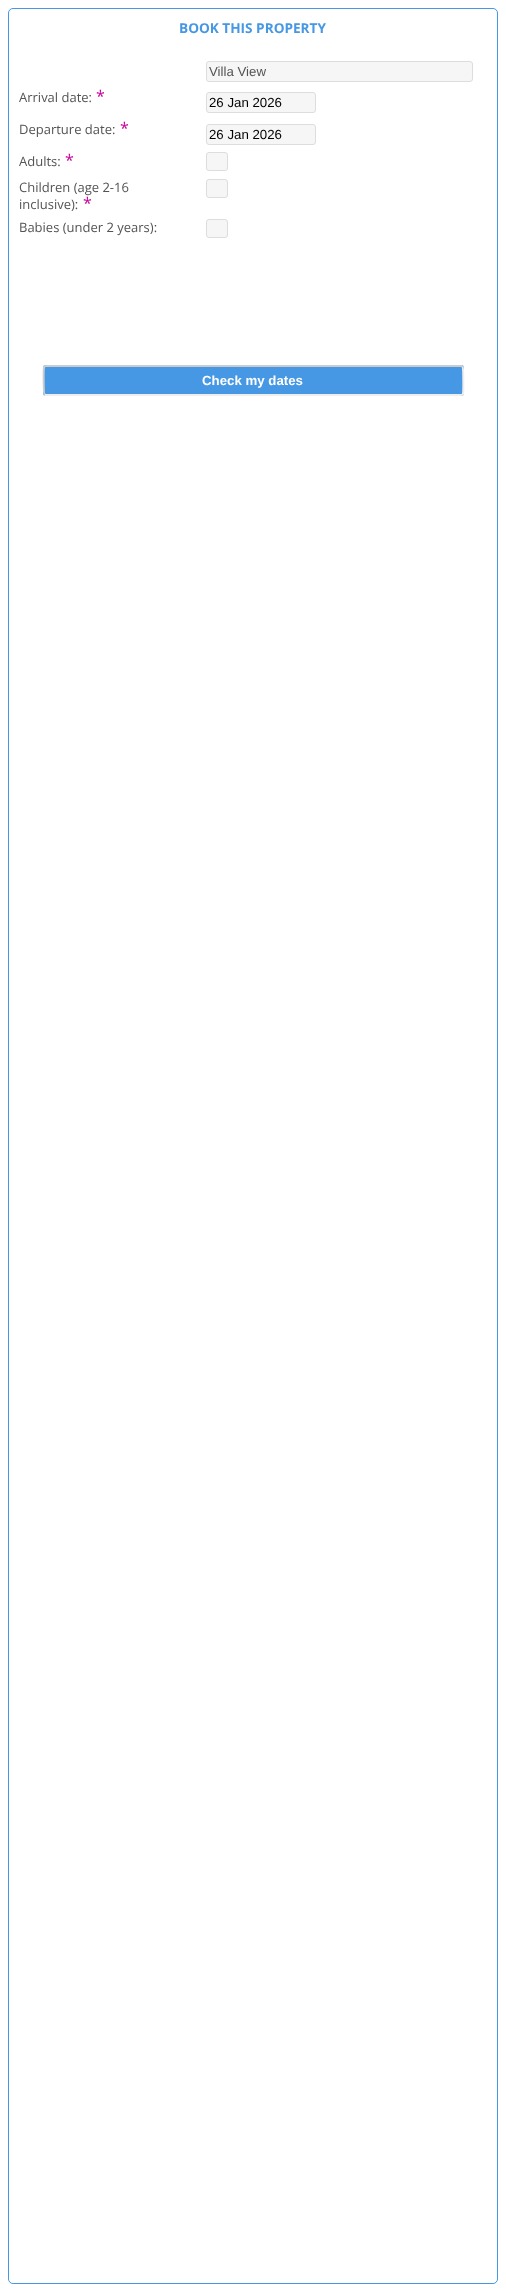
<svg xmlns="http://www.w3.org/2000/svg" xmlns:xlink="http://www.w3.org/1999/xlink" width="506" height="2292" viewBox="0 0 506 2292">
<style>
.cls-1{font:bold 13.6px Open Sans;fill:#4697e4}
.cls-2{font:13.25px Liberation Sans;fill:#545454}
.cls-3{font:13px Open Sans;fill:#545454}
.cls-4{font:16px Open Sans;fill:#cc0099}
.cls-5{font:13.25px Liberation Sans;fill:#000000}
.cls-6{font:bold 13.25px Liberation Sans;fill:#ffffff}
</style>
<rect width="100%" height="100%" fill="#ffffff"/>
<rect fill="none" stroke="#4697e4" x="8.5" y="8.5" width="489" height="2275" rx="4.5"/>
<rect fill="#f6f6f6" stroke="#dddddd" x="206.5" y="61.5" width="266" height="20" rx="2.5"/>
<rect fill="#f6f6f6" stroke="#dddddd" x="206.5" y="92.5" width="109" height="20" rx="2.5"/>
<rect fill="#f6f6f6" stroke="#dddddd" x="206.5" y="124.5" width="109" height="20" rx="2.5"/>
<rect fill="#f6f6f6" stroke="#dddddd" x="206.5" y="152.5" width="21" height="18" rx="2.5"/>
<rect fill="#f6f6f6" stroke="#dddddd" x="206.5" y="179.5" width="21" height="18" rx="2.5"/>
<rect fill="#f6f6f6" stroke="#dddddd" x="206.5" y="219.5" width="21" height="18" rx="2.5"/>
<rect fill="#4697e4" x="43" y="365" width="421" height="31" rx="3"/>
<path fill="none" stroke="#eeeeee" stroke-width="2" d="M462.5 366.5C463.5 367.5 463.5 391 463 393.5C463 394.5 462 395 461 395H45.5L44.5 394.5"/>
<path fill="none" stroke="#cccccc" stroke-width="2" d="M44.5 394.5C43.5 393.5 43.5 370 44 367.5C44 366.5 45 366 46 366H461.5L462.5 366.5"/>
<text class="cls-1" x="179" y="33">BOOK THIS PROPERTY</text>
<text class="cls-2" x="209" y="76">Villa View</text>
<text class="cls-3" x="19" y="102">Arrival date:</text>
<text class="cls-4" x="96" y="102">*</text>
<text class="cls-5" x="209" y="107">26 Jan 2026</text>
<text class="cls-3" x="19" y="134">Departure date:</text>
<text class="cls-4" x="120" y="134">*</text>
<text class="cls-5" x="209" y="139">26 Jan 2026</text>
<text class="cls-3" x="19" y="166">Adults:</text>
<text class="cls-4" x="65" y="166">*</text>
<text class="cls-3"><tspan x="19" y="192">Children (age 2-16</tspan><tspan x="19" y="209">inclusive):</tspan></text>
<text class="cls-4" x="83" y="209">*</text>
<text class="cls-3" x="19" y="232">Babies (under 2 years):</text>
<text class="cls-6" x="202" y="385">Check my dates</text>
</svg>
